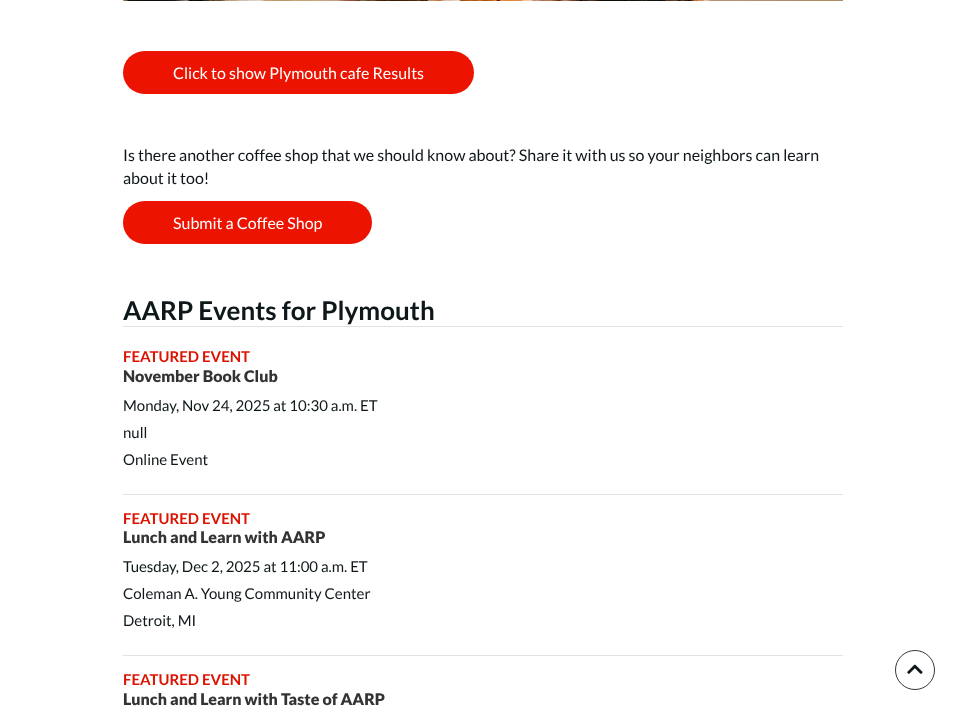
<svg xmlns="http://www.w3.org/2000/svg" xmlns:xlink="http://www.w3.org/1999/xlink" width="965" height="720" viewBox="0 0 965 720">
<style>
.cls-1{font:16px Lato;fill:#ffffff}
.cls-2{font:16px Lato;fill:#0e1719}
.cls-3{font:bold 26px Lato;fill:#0e1719}
.cls-4{font:bold 15px Lato;fill:#dd1200}
.cls-5{font:900 16px Lato;fill:#333333}
.cls-6{font:15px Lato;fill:#0e1719}
</style>
<rect width="100%" height="100%" fill="#ffffff"/>
<image xlink:href="image0.png" x="123" y="0" width="720" height="1"/>
<rect fill="#ec1300" x="123" y="51" width="351" height="43" rx="21.5"/>
<rect fill="#ec1300" x="123" y="201" width="249" height="43" rx="21.5"/>
<rect fill="#e1e1e1" x="123" y="326" width="720" height="1"/>
<rect fill="#e1e1e1" x="123" y="494" width="720" height="1"/>
<rect fill="#e1e1e1" x="123" y="655" width="720" height="1"/>
<circle fill="none" stroke="#37383d" cx="915" cy="670" r="19.5"/>
<image xlink:href="image1.png" x="907" y="664" width="16" height="10"/>
<text class="cls-1" x="173" y="79">Click to show Plymouth cafe Results</text>
<text class="cls-2"><tspan x="123" y="161">Is there another coffee shop that we should know about? Share it with us so your neighbors can learn</tspan><tspan x="123" y="184">about it too!</tspan></text>
<text class="cls-1" x="173" y="229">Submit a Coffee Shop</text>
<text class="cls-3" x="123" y="320">AARP Events for Plymouth</text>
<text class="cls-4" x="123" y="362">FEATURED EVENT</text>
<text class="cls-5" x="123" y="382">November Book Club</text>
<text class="cls-6"><tspan x="123" y="411">Monday, Nov 24, 2025 at 10:30 a.m. ET</tspan><tspan x="123" y="438">null</tspan><tspan x="123" y="465">Online Event</tspan></text>
<text class="cls-4" x="123" y="524">FEATURED EVENT</text>
<text class="cls-5" x="123" y="543">Lunch and Learn with AARP</text>
<text class="cls-6"><tspan x="123" y="572">Tuesday, Dec 2, 2025 at 11:00 a.m. ET</tspan><tspan x="123" y="599">Coleman A. Young Community Center</tspan><tspan x="123" y="626">Detroit, MI</tspan></text>
<text class="cls-4" x="123" y="685">FEATURED EVENT</text>
<text class="cls-5" x="123" y="705">Lunch and Learn with Taste of AARP</text>
</svg>
